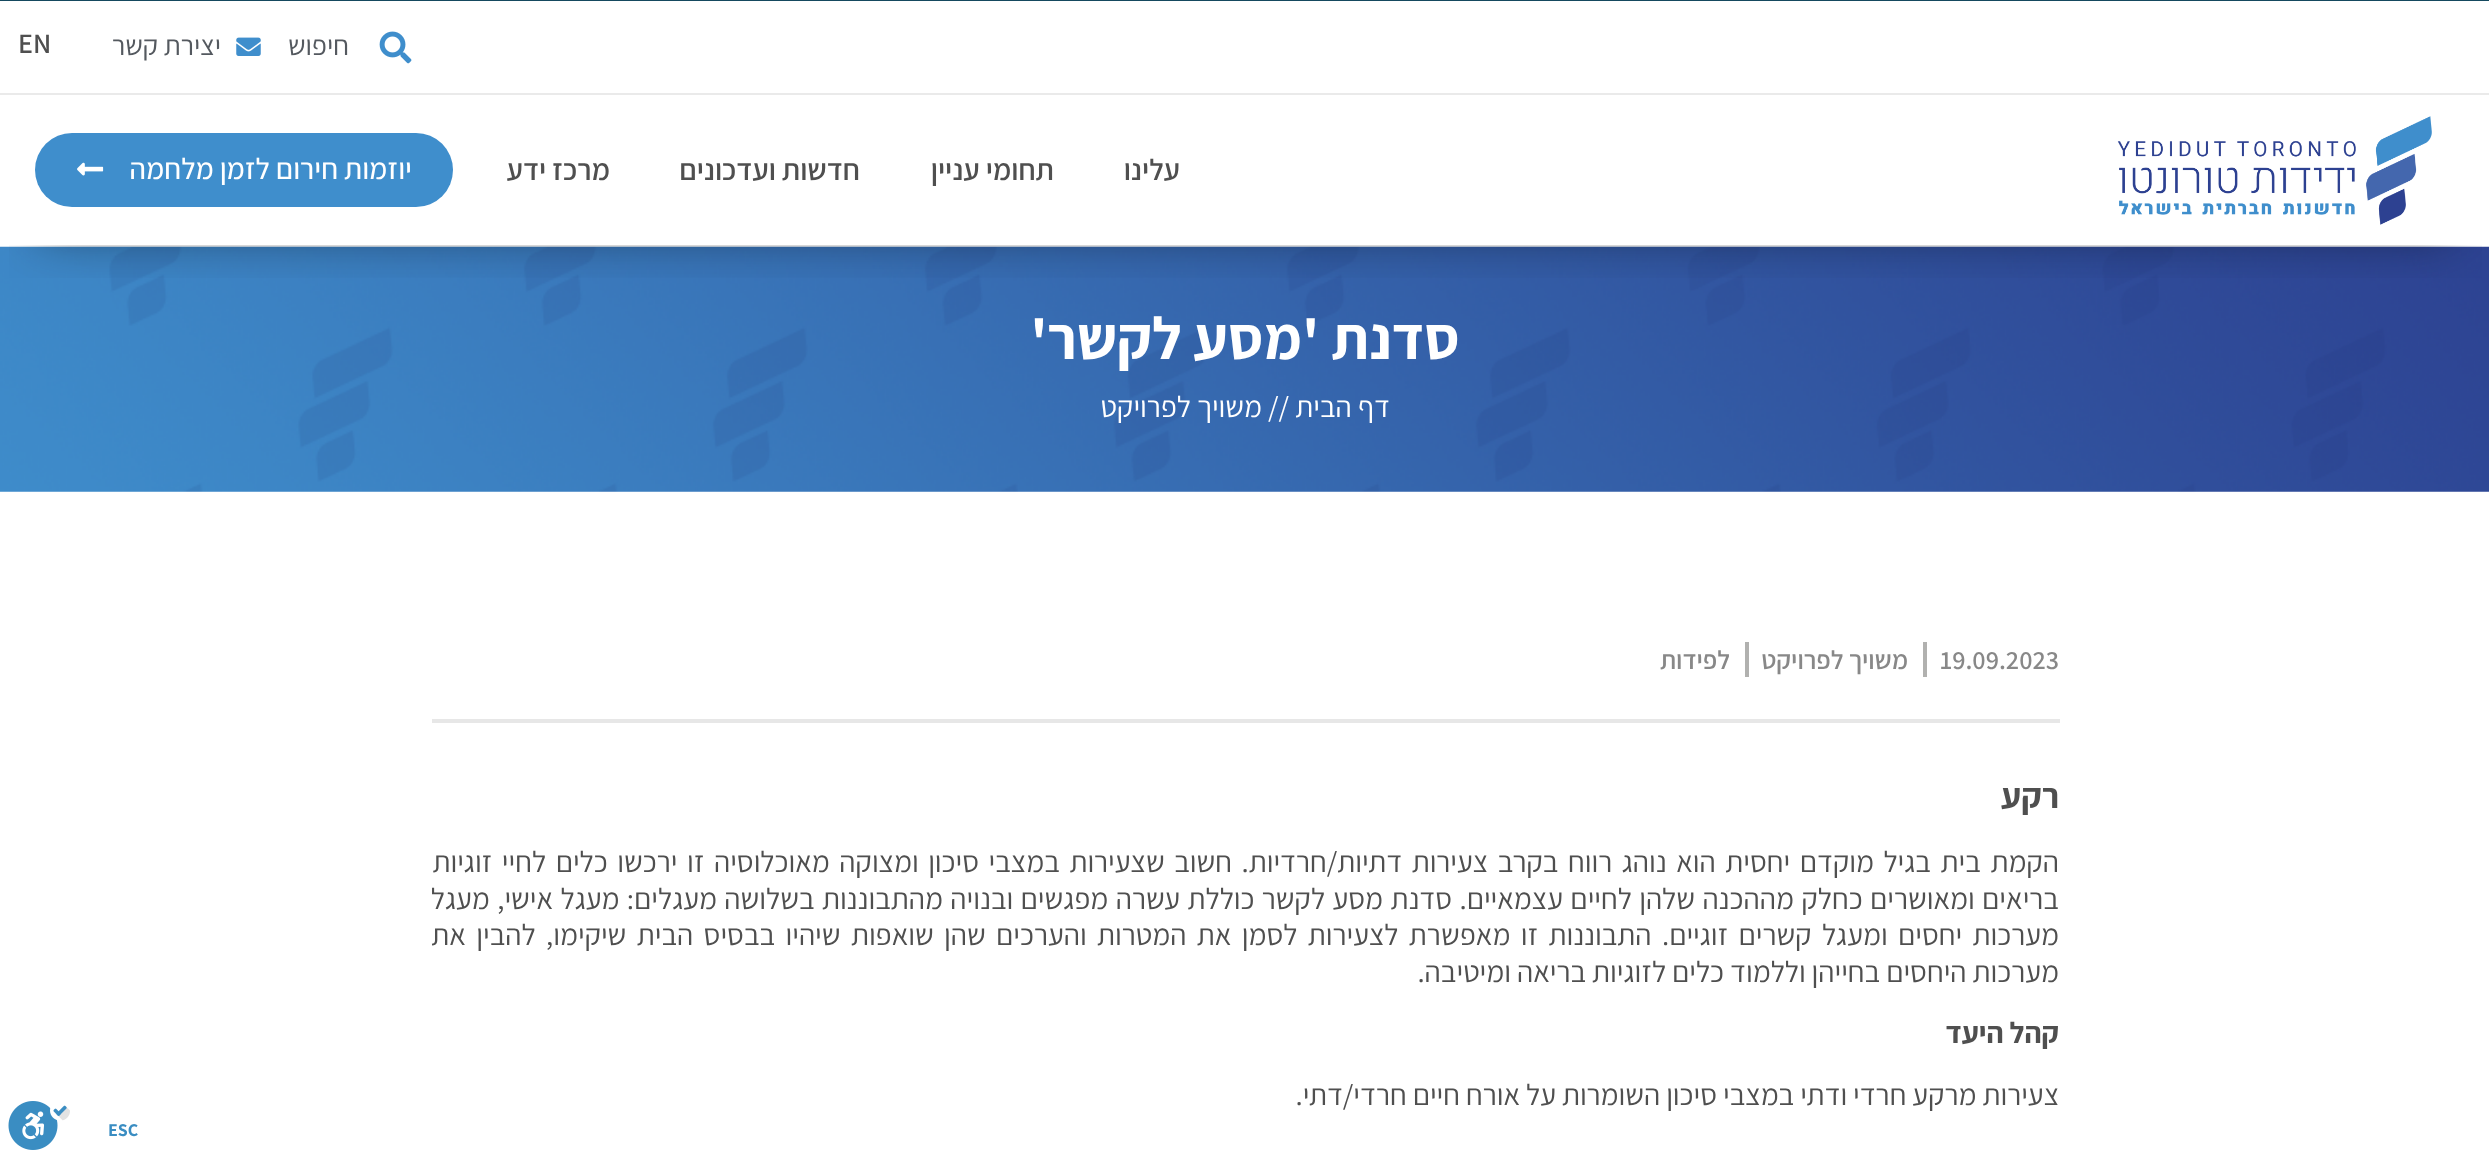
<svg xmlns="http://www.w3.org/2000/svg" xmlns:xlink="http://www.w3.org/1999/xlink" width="2489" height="1162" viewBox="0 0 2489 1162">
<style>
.cls-1{font:28px Assistant;direction:rtl;fill:#54595f}
.cls-2{font:600 28px Assistant;fill:#4f4f4f}
.cls-3{font:600 29.75px Assistant;direction:rtl;fill:#4f4f4f}
.cls-4{font:500 29.75px Assistant;direction:rtl;fill:#ffffff}
.cls-5{font:bold 59.5px Assistant;direction:rtl;fill:#ffffff}
.cls-6{font:29.75px Assistant;direction:rtl;fill:#ffffff}
.cls-7{font:29.75px Assistant;fill:#ffffff}
.cls-8{font:600 26.25px Assistant;fill:#888888}
.cls-9{font:600 26.25px Assistant;direction:rtl;fill:#888888}
.cls-10{font:bold 35px Assistant;direction:rtl;fill:#4f4f4f}
.cls-11{font:29.75px Assistant;direction:rtl;fill:#4f4f4f}
.cls-12{font:bold 29.75px Assistant;direction:rtl;fill:#4f4f4f}
.cls-13{font:bold 18px Assistant;fill:#3a8dc2}
</style>
<defs>
<clipPath id="clip1"><rect x="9" y="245" width="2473" height="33"/></clipPath>
</defs>
<rect width="100%" height="100%" fill="#ffffff"/>
<rect fill="#eaeaea" x="0" y="93" width="2489" height="2"/>
<image xlink:href="image0.png" x="379" y="31" width="33" height="33"/>
<image xlink:href="image1.png" x="236" y="37" width="25" height="19"/>
<image xlink:href="image4.png" x="0" y="246" width="2489" height="246"/>
<g clip-path="url(#clip1)">
<rect fill="#000000" fill-opacity="0.5" filter="blur(26px)" x="39" y="159" width="2413" height="74"/>
</g>
<image xlink:href="image2.png" x="2117" y="116" width="315" height="109"/>
<rect fill="#3f8ecc" x="35" y="133" width="418" height="74" rx="37"/>
<image xlink:href="image3.png" x="77" y="162" width="27" height="14"/>
<rect fill="#b1b1af" x="1923" y="642" width="4" height="35"/>
<rect fill="#b1b1af" x="1745" y="642" width="4" height="35"/>
<rect fill="#e7e7e7" x="432" y="719" width="1628" height="4"/>
<rect fill="#15495f" x="0" y="0" width="2489" height="1"/>
<image xlink:href="image5.png" x="8" y="1101" width="62" height="49"/>
<text class="cls-1" x="349" y="55">חיפוש</text>
<text class="cls-1" x="221" y="55">יצירת קשר</text>
<text class="cls-2" x="18" y="53">EN</text>
<text class="cls-3" x="1180" y="180">עלינו</text>
<text class="cls-3" x="1054" y="180">תחומי עניין</text>
<text class="cls-3" x="860" y="180">חדשות ועדכונים</text>
<text class="cls-3" x="610" y="180">מרכז ידע</text>
<text class="cls-4" x="412" y="179">יוזמות חירום לזמן מלחמה</text>
<text class="cls-5" x="1460" y="359">סדנת 'מסע לקשר'</text>
<text class="cls-6" x="1390" y="417">דף הבית</text>
<text class="cls-7" x="1268" y="417">//</text>
<text class="cls-6" x="1262" y="417">משויך לפרויקט</text>
<text class="cls-8" x="1940" y="669">19.09.2023</text>
<text class="cls-9" x="1908" y="669">משויך לפרויקט</text>
<text class="cls-9" x="1730" y="669">לפידות</text>
<text class="cls-10" x="2059" y="808">רקע</text>
<text class="cls-11"><tspan x="2059" y="872" word-spacing="3.6">הקמת בית בגיל מוקדם יחסית הוא נוהג רווח בקרב צעירות דתיות/חרדיות. חשוב שצעירות במצבי סיכון ומצוקה מאוכלוסיה זו ירכשו כלים לחיי זוגיות</tspan><tspan x="2059" y="909" word-spacing="1.4">בריאים ומאושרים כחלק מההכנה שלהן לחיים עצמאיים. סדנת מסע לקשר כוללת עשרה מפגשים ובנויה מהתבוננות בשלושה מעגלים: מעגל אישי, מעגל</tspan><tspan x="2059" y="945" word-spacing="4.4">מערכות יחסים ומעגל קשרים זוגיים. התבוננות זו מאפשרת לצעירות לסמן את המטרות והערכים שהן שואפות שיהיו בבסיס הבית שיקימו, להבין את</tspan><tspan x="2059" y="982">מערכות היחסים בחייהן וללמוד כלים לזוגיות בריאה ומיטיבה.</tspan></text>
<text class="cls-12" x="2059" y="1043">קהל היעד</text>
<text class="cls-11" x="2059" y="1105">צעירות מרקע חרדי ודתי במצבי סיכון השומרות על אורח חיים חרדי/דתי.</text>
<text class="cls-13" x="108" y="1136">ESC</text>
</svg>
